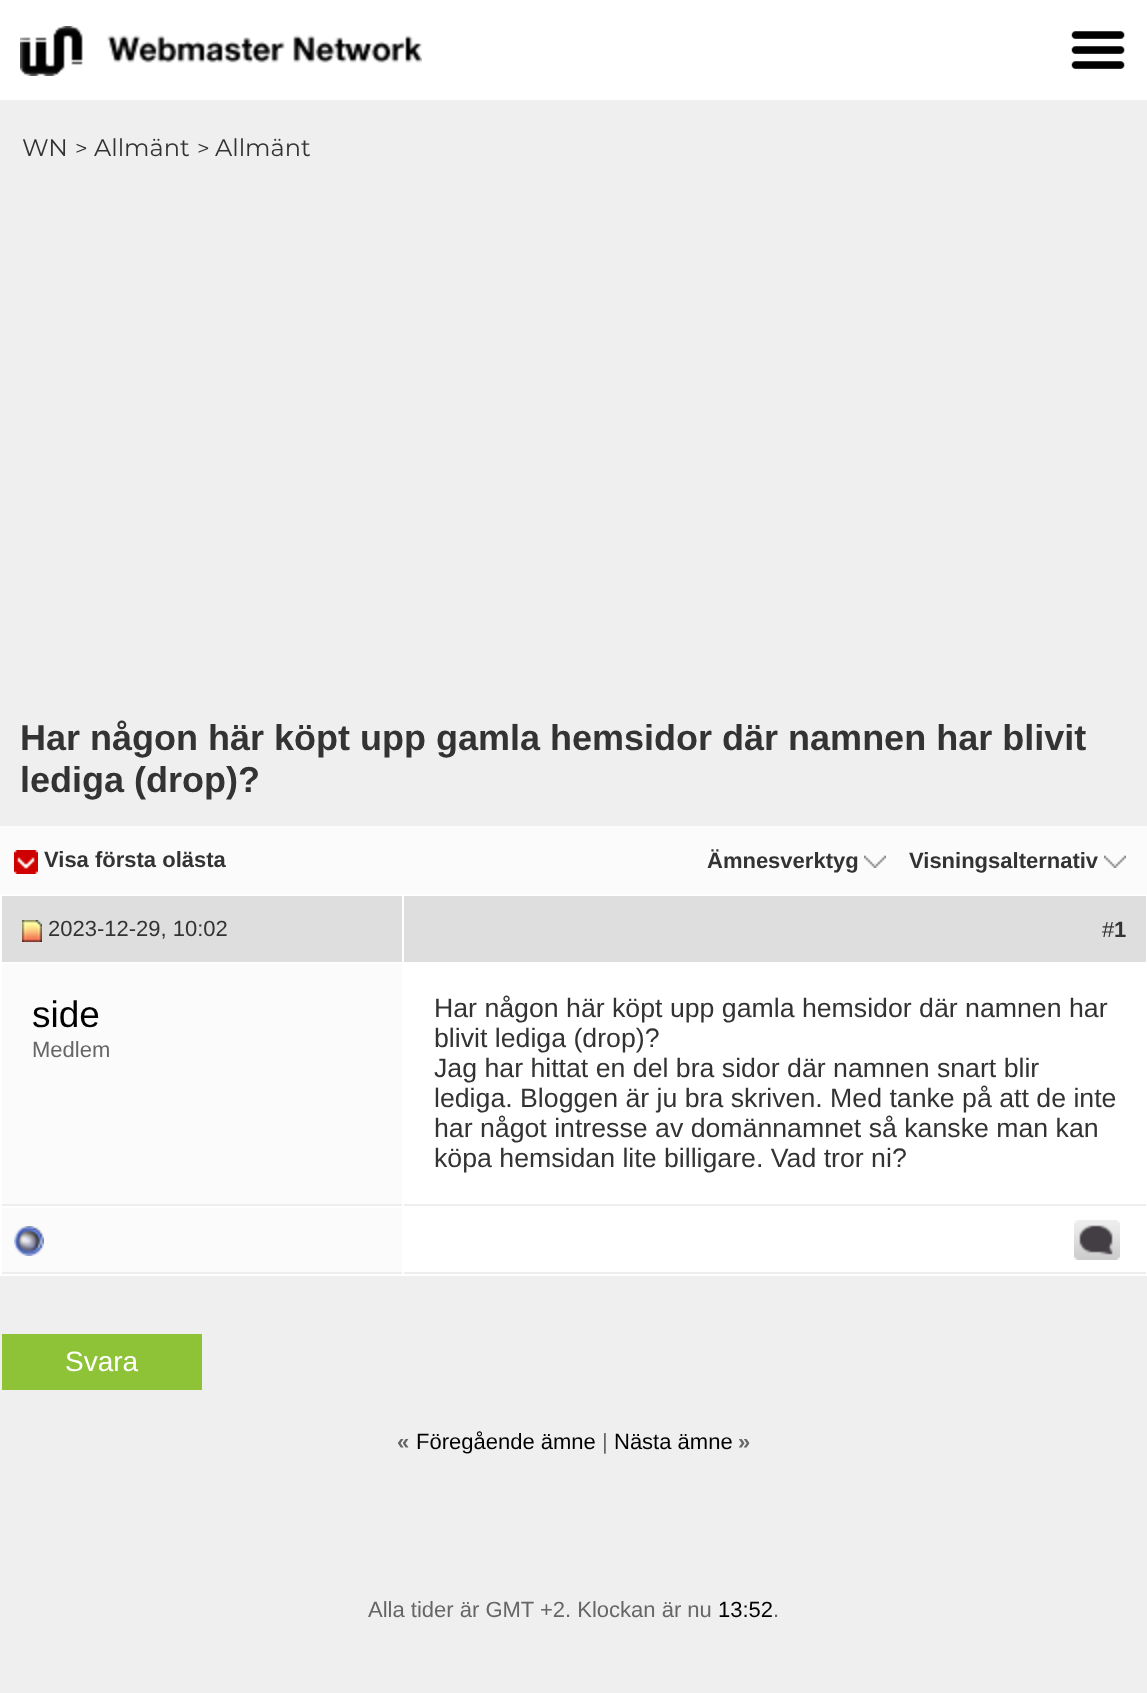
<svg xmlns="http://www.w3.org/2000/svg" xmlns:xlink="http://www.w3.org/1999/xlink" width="1147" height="1693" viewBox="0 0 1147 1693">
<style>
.cls-1{font:24px Montserrat;fill:#333333}
.cls-2{font:22px Montserrat;fill:#333333}
.cls-3{font:bold 36px Liberation Sans;fill:#333333}
.cls-4{font:bold 22px Liberation Sans;fill:#333333}
.cls-5{font:22px Liberation Sans;fill:#333333}
.cls-6{font:37px Liberation Sans;fill:#000000}
.cls-7{font:22px Liberation Sans;fill:#666666}
.cls-8{font:26.7px Liberation Sans;fill:#333333}
.cls-9{font:28px Liberation Sans;fill:#ffffff}
.cls-10{font:bold 22px Liberation Sans;fill:#666666}
.cls-11{font:22px Liberation Sans;fill:#000000}
</style>
<rect width="100%" height="100%" fill="#efefef"/>
<rect fill="#ffffff" x="0" y="0" width="1147" height="100"/>
<image xlink:href="image0.png" x="20" y="26" width="402" height="50"/>
<image xlink:href="image1.png" x="1071" y="31" width="54" height="38"/>
<rect fill="#fbfbfb" x="0" y="826" width="1147" height="68"/>
<image xlink:href="image2.png" x="14" y="850" width="24" height="24"/>
<image xlink:href="image3.png" x="864" y="855" width="22" height="13"/>
<image xlink:href="image3.png" x="1104" y="855" width="22" height="13"/>
<rect fill="#ffffff" x="0" y="894" width="1147" height="382"/>
<rect fill="#dedede" x="2" y="896" width="400" height="66"/>
<image xlink:href="image4.png" x="22" y="920" width="20" height="22"/>
<rect fill="#dedede" x="404" y="896" width="742" height="66"/>
<rect fill="#fbfbfb" x="2" y="964" width="400" height="240"/>
<rect fill="#eeeeee" x="2" y="1204" width="400" height="2"/>
<rect fill="#eeeeee" x="404" y="1204" width="742" height="2"/>
<rect fill="#fbfbfb" x="2" y="1208" width="400" height="64"/>
<rect fill="#eeeeee" x="2" y="1272" width="400" height="2"/>
<image xlink:href="image5.png" x="14" y="1226" width="30" height="30"/>
<rect fill="#eeeeee" x="404" y="1272" width="742" height="2"/>
<image xlink:href="image6.png" x="1074" y="1220" width="46" height="40"/>
<rect fill="#8ec237" x="2" y="1334" width="200" height="56"/>
<text class="cls-1" x="22" y="156">WN</text>
<text class="cls-2" x="75" y="156">&gt;</text>
<text class="cls-1" x="94" y="156">Allmänt</text>
<text class="cls-2" x="197" y="156">&gt;</text>
<text class="cls-1" x="215" y="156">Allmänt</text>
<text class="cls-3"><tspan x="20" y="750">Har någon här köpt upp gamla hemsidor där namnen har blivit</tspan><tspan x="20" y="792">lediga (drop)?</tspan></text>
<text class="cls-4" x="44" y="867">Visa första olästa</text>
<text class="cls-4" x="707" y="868">Ämnesverktyg</text>
<text class="cls-4" x="909" y="868">Visningsalternativ</text>
<text class="cls-5" x="48" y="936">2023-12-29, 10:02</text>
<text class="cls-5" x="1102" y="937">#</text>
<text class="cls-4" x="1114" y="937">1</text>
<text class="cls-6" x="32" y="1027">side</text>
<text class="cls-7" x="32" y="1057">Medlem</text>
<text class="cls-8"><tspan x="434" y="1017">Har någon här köpt upp gamla hemsidor där namnen har</tspan><tspan x="434" y="1047">blivit lediga (drop)?</tspan><tspan x="434" y="1077">Jag har hittat en del bra sidor där namnen snart blir</tspan><tspan x="434" y="1107">lediga. Bloggen är ju bra skriven. Med tanke på att de inte</tspan><tspan x="434" y="1137">har något intresse av domännamnet så kanske man kan</tspan><tspan x="434" y="1167">köpa hemsidan lite billigare. Vad tror ni?</tspan></text>
<text class="cls-9" x="65" y="1371">Svara</text>
<text class="cls-10" x="397" y="1449">«</text>
<text class="cls-11" x="416" y="1449">Föregående ämne</text>
<text class="cls-7" x="602" y="1449">|</text>
<text class="cls-11" x="614" y="1449">Nästa ämne</text>
<text class="cls-10" x="738" y="1449">»</text>
<text class="cls-7" x="368" y="1617">Alla tider är GMT +2. Klockan är nu</text>
<text class="cls-11" x="718" y="1617">13:52</text>
<text class="cls-7" x="773" y="1617">.</text>
</svg>
